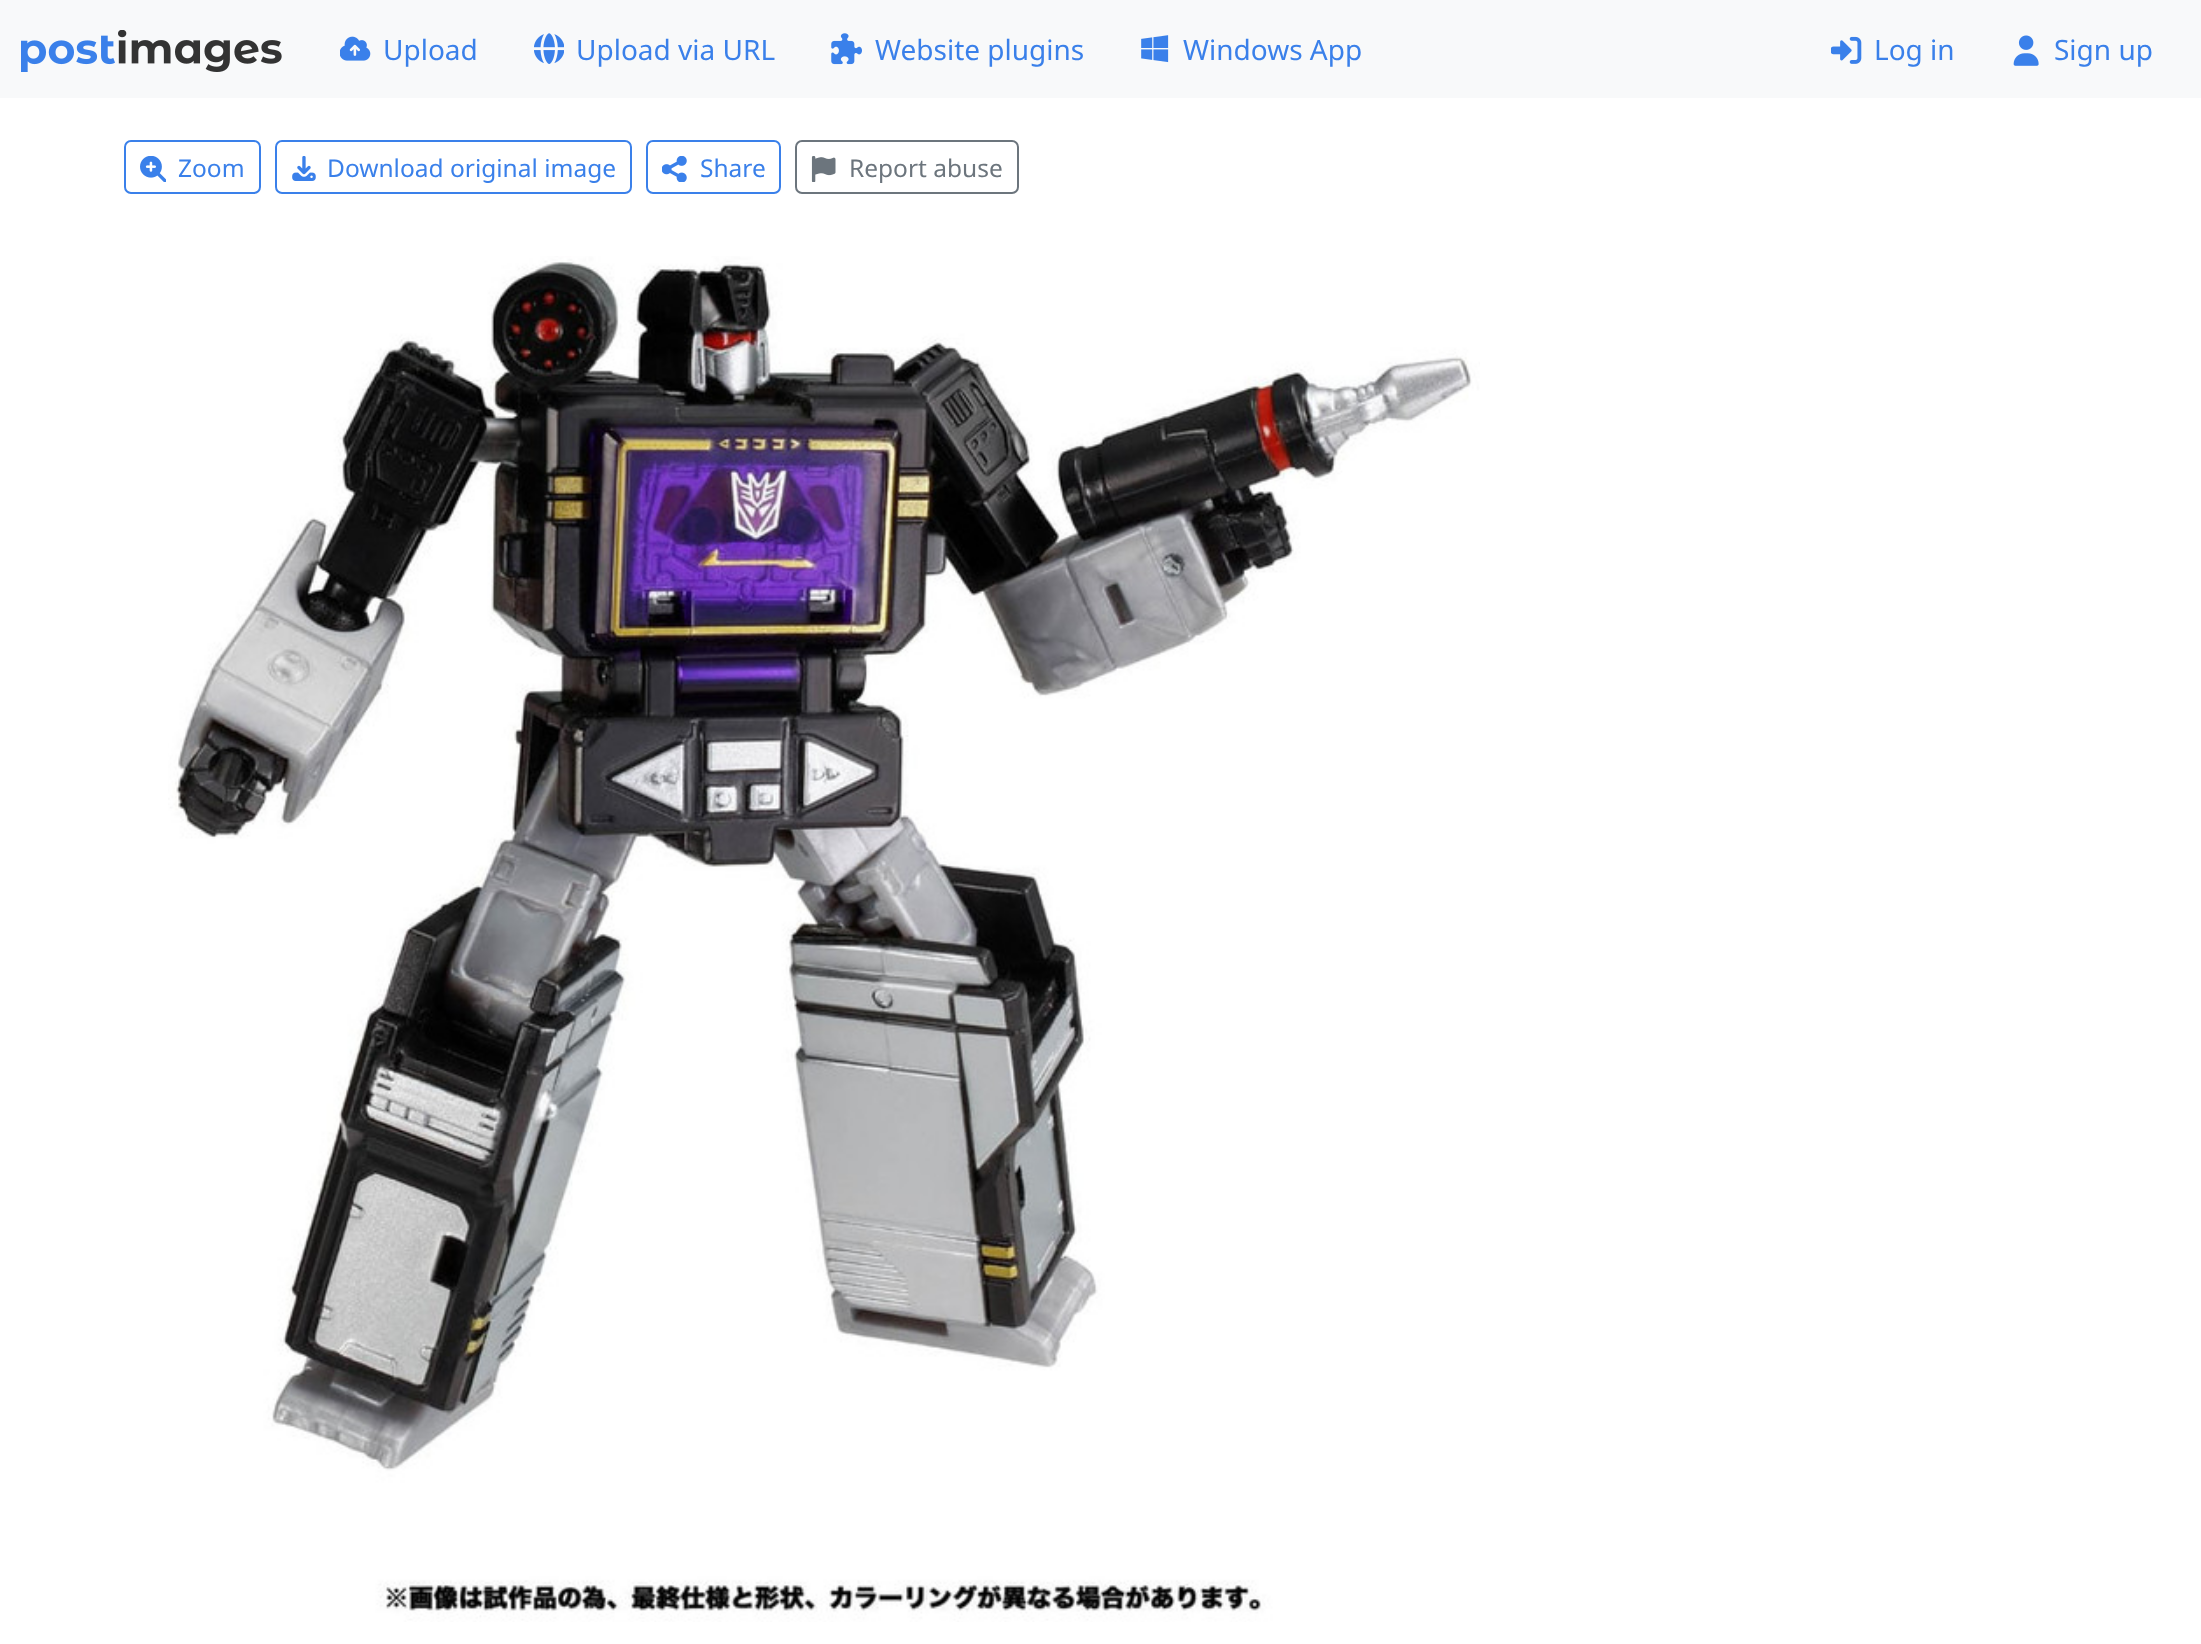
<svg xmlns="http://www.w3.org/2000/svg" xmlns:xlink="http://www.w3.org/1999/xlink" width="2201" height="1644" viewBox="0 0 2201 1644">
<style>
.cls-1{font:28px Noto Sans;fill:#3a80ea}
.cls-2{font:24.5px Noto Sans;fill:#3a80ea}
.cls-3{font:24.5px Noto Sans;fill:#6c757d}
</style>
<rect width="100%" height="100%" fill="#ffffff"/>
<rect fill="#f8f9fa" x="0" y="0" width="2201" height="98"/>
<image xlink:href="image0.png" x="21" y="30" width="261" height="42"/>
<image xlink:href="image1.png" x="340" y="36" width="31" height="25"/>
<image xlink:href="image2.png" x="534" y="33" width="30" height="31"/>
<image xlink:href="image3.png" x="831" y="33" width="31" height="32"/>
<image xlink:href="image4.png" x="1141" y="35" width="28" height="28"/>
<image xlink:href="image5.png" x="1831" y="36" width="31" height="28"/>
<image xlink:href="image6.png" x="2013" y="35" width="26" height="31"/>
<rect fill="none" stroke="#3a80ea" stroke-width="2" x="125" y="141" width="135" height="52" rx="6"/>
<image xlink:href="image7.png" x="140" y="156" width="26" height="26"/>
<rect fill="none" stroke="#3a80ea" stroke-width="2" x="276" y="141" width="355" height="52" rx="6"/>
<image xlink:href="image8.png" x="292" y="156" width="24" height="25"/>
<rect fill="none" stroke="#3a80ea" stroke-width="2" x="647" y="141" width="133" height="52" rx="6"/>
<image xlink:href="image9.png" x="662" y="156" width="25" height="26"/>
<rect fill="none" stroke="#6c757d" stroke-width="2" x="796" y="141" width="222" height="52" rx="6"/>
<image xlink:href="image10.png" x="811" y="156" width="25" height="26"/>
<image xlink:href="image11.png" x="168" y="256" width="1312" height="1366"/>
<text class="cls-1" x="383" y="60">Upload</text>
<text class="cls-1" x="576" y="60">Upload via URL</text>
<text class="cls-1" x="875" y="60">Website plugins</text>
<text class="cls-1" x="1183" y="60">Windows App</text>
<text class="cls-1" x="1874" y="60">Log in</text>
<text class="cls-1" x="2054" y="60">Sign up</text>
<text class="cls-2" x="178" y="177">Zoom</text>
<text class="cls-2" x="327" y="177">Download original image</text>
<text class="cls-2" x="700" y="177">Share</text>
<text class="cls-3" x="849" y="177">Report abuse</text>
</svg>
